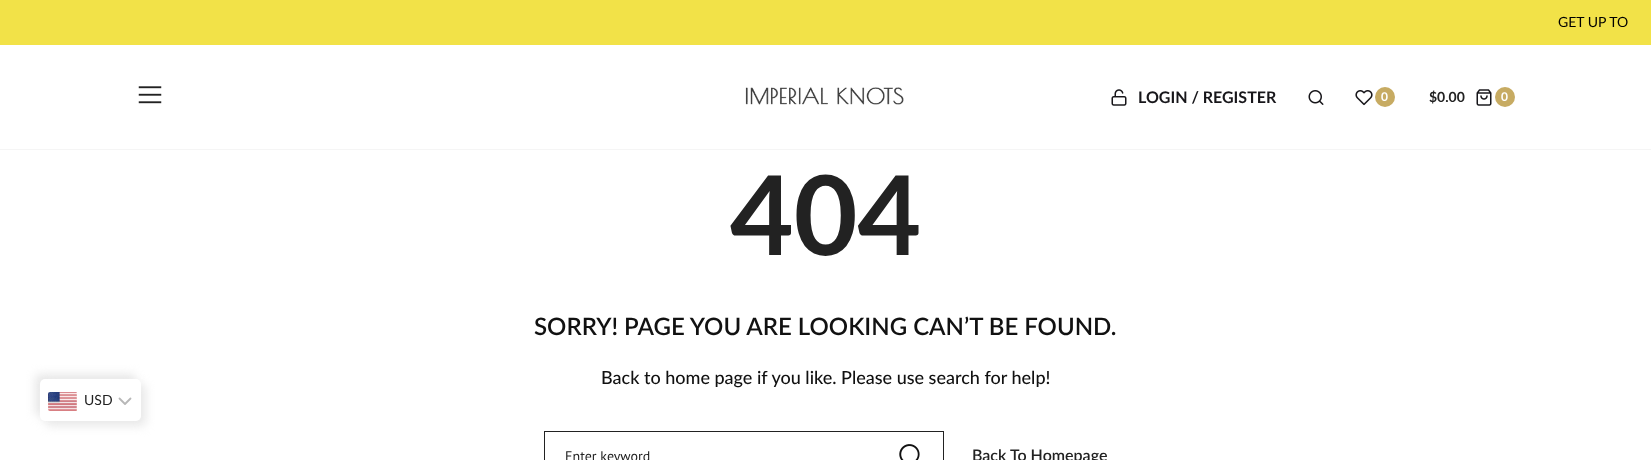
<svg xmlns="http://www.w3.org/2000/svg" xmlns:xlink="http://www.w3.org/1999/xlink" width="1651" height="460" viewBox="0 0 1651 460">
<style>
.cls-1{font:14px Lato;fill:#222222}
.cls-2{font:14px Lato;fill:#000000}
.cls-3{font:bold 16px Lato;fill:#17161a}
.cls-4{font:bold 12px Lato;fill:#ffffff}
.cls-5{font:bold 14px Lato;fill:#222222}
.cls-6{font:bold 110px Lato;fill:#222222}
.cls-7{font:600 24px Lato;fill:#111111}
.cls-8{font:500 18px Lato;fill:#111111}
.cls-9{font:14px PT Sans;fill:#222222}
.cls-10{font:600 16px Lato;fill:#222222}
</style>
<rect width="100%" height="100%" fill="#ffffff"/>
<rect fill="#e8e8e8" filter="blur(5px)" x="35" y="374" width="101" height="42" rx="5"/>
<rect fill="#e8e8e8" filter="blur(5px)" x="45" y="384" width="101" height="42" rx="5"/>
<rect fill="#ffffff" x="40" y="379" width="101" height="42" rx="5"/>
<image xlink:href="image0.png" x="48" y="392" width="29" height="19"/>
<path fill="none" stroke="#b7b7b7" stroke-width="1.8" stroke-linecap="round" stroke-linejoin="round" d="M119.5 398.5L125 404L130.5 398.5"/>
<rect fill="#f2e248" x="0" y="0" width="1651" height="45"/>
<image xlink:href="image1.png" x="138" y="86" width="24" height="18"/>
<image xlink:href="image2.png" x="745" y="87" width="159" height="18"/>
<image xlink:href="image3.png" x="1111" y="89" width="16" height="17"/>
<image xlink:href="image4.png" x="1308" y="90" width="16" height="15"/>
<image xlink:href="image5.png" x="1355" y="90" width="18" height="16"/>
<circle fill="#c7ab62" cx="1385" cy="97" r="10"/>
<image xlink:href="image6.png" x="1476" y="89" width="16" height="17"/>
<circle fill="#c7ab62" cx="1505" cy="97" r="10"/>
<rect fill="#f5f5f5" x="0" y="149" width="1651" height="1"/>
<rect fill="none" stroke="#222222" x="544.5" y="431.5" width="399" height="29"/>
<image xlink:href="image7.png" x="899" y="444" width="21" height="16"/>
<text class="cls-1" x="84" y="405">USD</text>
<text class="cls-2" x="1558" y="27">GET UP TO</text>
<text class="cls-3" x="1138" y="103">LOGIN / REGISTER</text>
<text class="cls-4" x="1381" y="101">0</text>
<text class="cls-5" x="1429" y="102">$0.00</text>
<text class="cls-4" x="1501" y="101">0</text>
<text class="cls-6" x="730" y="255">404</text>
<text class="cls-7" x="534" y="335">SORRY! PAGE YOU ARE LOOKING CAN’T BE FOUND.</text>
<text class="cls-8" x="601" y="384">Back to home page if you like. Please use search for help!</text>
<text class="cls-9" x="565" y="461">Enter keyword</text>
<text class="cls-10" x="972" y="461">Back To Homepage</text>
</svg>
